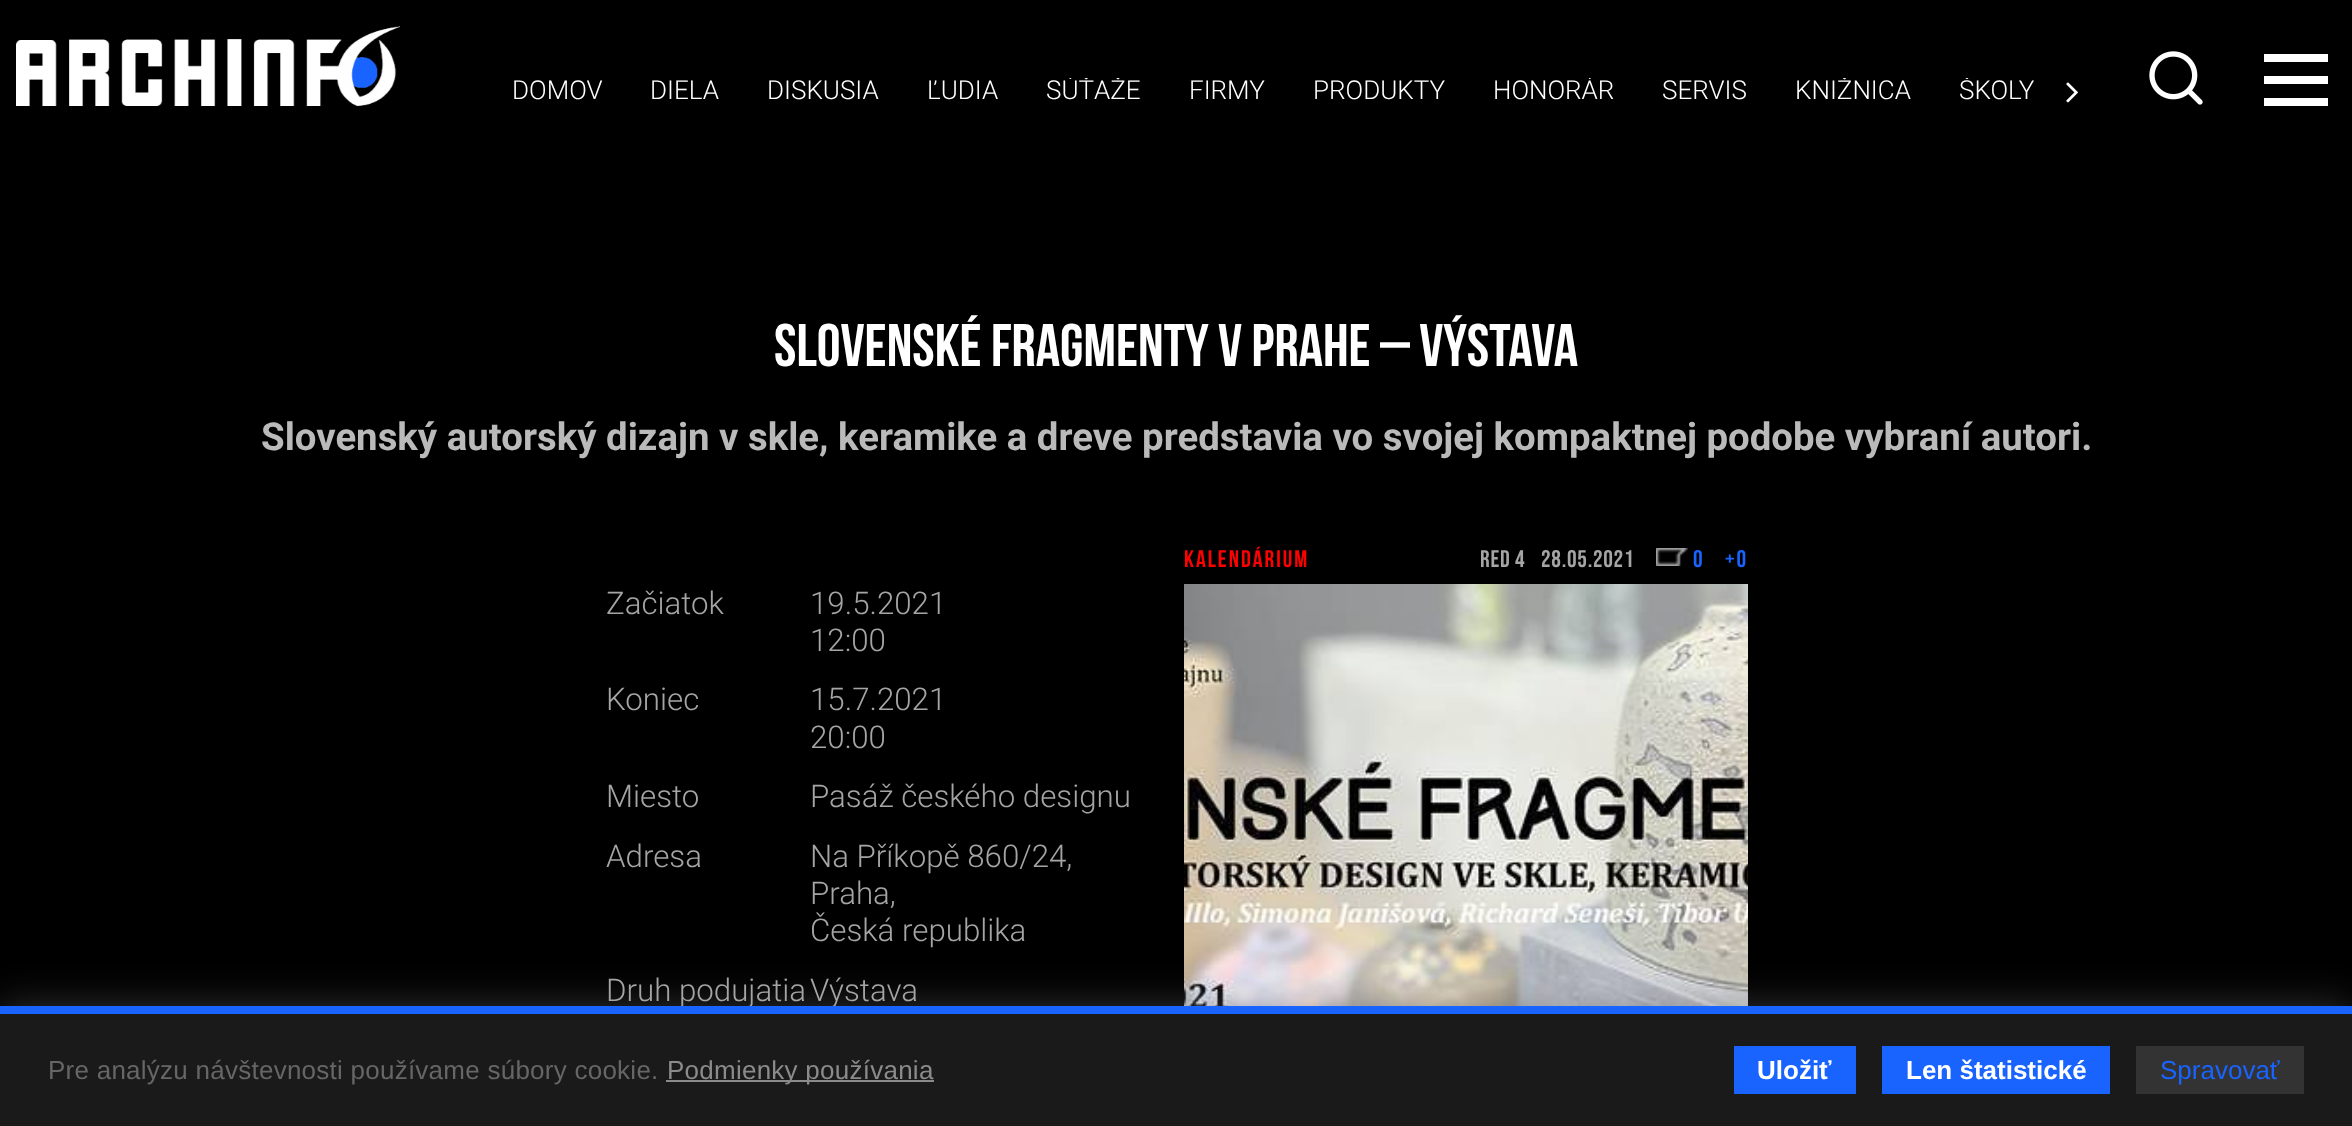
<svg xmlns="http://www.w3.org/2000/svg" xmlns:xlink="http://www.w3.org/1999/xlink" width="2352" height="1126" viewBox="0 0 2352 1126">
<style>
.cls-1{font:300 26px Roboto;fill:#ffffff}
.cls-2{font:bold 60px Bebas Neue;fill:#ffffff}
.cls-3{font:bold 38.4px Roboto;fill:#bababa}
.cls-4{font:bold 24px Bebas Neue;letter-spacing:2px;fill:#ff0000}
.cls-5{font:24px Bebas Neue;letter-spacing:0.75px;fill:#a5a5a5}
.cls-6{font:24px Bebas Neue;letter-spacing:2px;fill:#1964ff}
.cls-7{font:300 31.25px Roboto;fill:#a5a5a5}
.cls-8{font:26px Liberation Sans;letter-spacing:0.25px;fill:#666666}
.cls-9{font:26px Liberation Sans;letter-spacing:0.25px;fill:#8b8b8b}
.cls-10{font:bold 26px Liberation Sans;fill:#ffffff}
.cls-11{font:26px Liberation Sans;fill:#1964ff}
</style>
<defs>
<clipPath id="clip1"><rect x="512" y="78" width="1528" height="28"/></clipPath>
</defs>
<rect width="100%" height="100%" fill="#000000"/>
<image xlink:href="image0.png" x="16" y="26" width="384" height="80"/>
<image xlink:href="image1.png" x="2066" y="82" width="12" height="21"/>
<image xlink:href="image2.png" x="2149" y="51" width="54" height="54"/>
<rect fill="#ffffff" x="2264" y="54" width="64" height="8"/>
<rect fill="#ffffff" x="2264" y="76" width="64" height="8"/>
<rect fill="#ffffff" x="2264" y="98" width="64" height="8"/>
<image xlink:href="image3.png" x="1656" y="548" width="32" height="18"/>
<image xlink:href="image4.png" x="1184" y="584" width="564" height="422"/>
<rect fill="#646464" fill-opacity="0.5" filter="blur(20px)" x="0" y="1006" width="2352" height="120"/>
<rect fill="#1a1a1a" x="0" y="1014" width="2352" height="112"/>
<rect fill="#8b8b8b" x="666" y="1080" width="268" height="2"/>
<rect fill="#1964ff" x="1734" y="1046" width="122" height="48"/>
<rect fill="#1964ff" x="1882" y="1046" width="228" height="48"/>
<rect fill="#333333" x="2136" y="1046" width="168" height="48"/>
<text class="cls-1" x="512" y="99">DOMOV</text>
<text class="cls-1" x="650" y="99">DIELA</text>
<text class="cls-1" x="767" y="99">DISKUSIA</text>
<text class="cls-1" x="927" y="99">ĽUDIA</text>
<g clip-path="url(#clip1)">
<text class="cls-1" x="1046" y="99">SÚŤAŽE</text>
</g>
<text class="cls-1" x="1189" y="99">FIRMY</text>
<text class="cls-1" x="1313" y="99">PRODUKTY</text>
<g clip-path="url(#clip1)">
<text class="cls-1" x="1493" y="99">HONORÁR</text>
</g>
<text class="cls-1" x="1662" y="99">SERVIS</text>
<g clip-path="url(#clip1)">
<text class="cls-1" x="1795" y="99">KNIŽNICA</text>
<text class="cls-1" x="1959" y="99">ŠKOLY</text>
</g>
<text class="cls-2" x="774" y="366">Slovenské fragmenty v Prahe – výstava</text>
<text class="cls-3" x="261" y="450">Slovenský autorský dizajn v skle, keramike a dreve predstavia vo svojej kompaktnej podobe vybraní autori.</text>
<text class="cls-4" x="1184" y="567">KALENDÁRIUM</text>
<text class="cls-5" x="1480" y="567">Red 4</text>
<text class="cls-5" x="1541" y="567">28.05.2021</text>
<text class="cls-6" x="1693" y="567">0</text>
<text class="cls-6" x="1725" y="567">+0</text>
<text class="cls-7" x="606" y="614">Začiatok</text>
<text class="cls-7"><tspan x="810" y="614">19.5.2021</tspan><tspan x="810" y="651">12:00</tspan></text>
<text class="cls-7" x="606" y="710">Koniec</text>
<text class="cls-7"><tspan x="810" y="710">15.7.2021</tspan><tspan x="810" y="748">20:00</tspan></text>
<text class="cls-7" x="606" y="807">Miesto</text>
<text class="cls-7" x="810" y="807">Pasáž českého designu</text>
<text class="cls-7" x="606" y="867">Adresa</text>
<text class="cls-7"><tspan x="810" y="867">Na Příkopě 860/24,</tspan><tspan x="810" y="904">Praha,</tspan><tspan x="810" y="941">Česká republika</tspan></text>
<text class="cls-7" x="606" y="1001">Druh podujatia</text>
<text class="cls-7" x="810" y="1001">Výstava</text>
<rect fill="#1964ff" x="0" y="1006" width="2352" height="8"/>
<text class="cls-8" x="48" y="1079">Pre analýzu návštevnosti používame súbory cookie.</text>
<text class="cls-9" x="667" y="1079">Podmienky používania</text>
<text class="cls-10" x="1757" y="1079">Uložiť</text>
<text class="cls-10" x="1906" y="1079">Len štatistické</text>
<text class="cls-11" x="2160" y="1079">Spravovať</text>
</svg>
